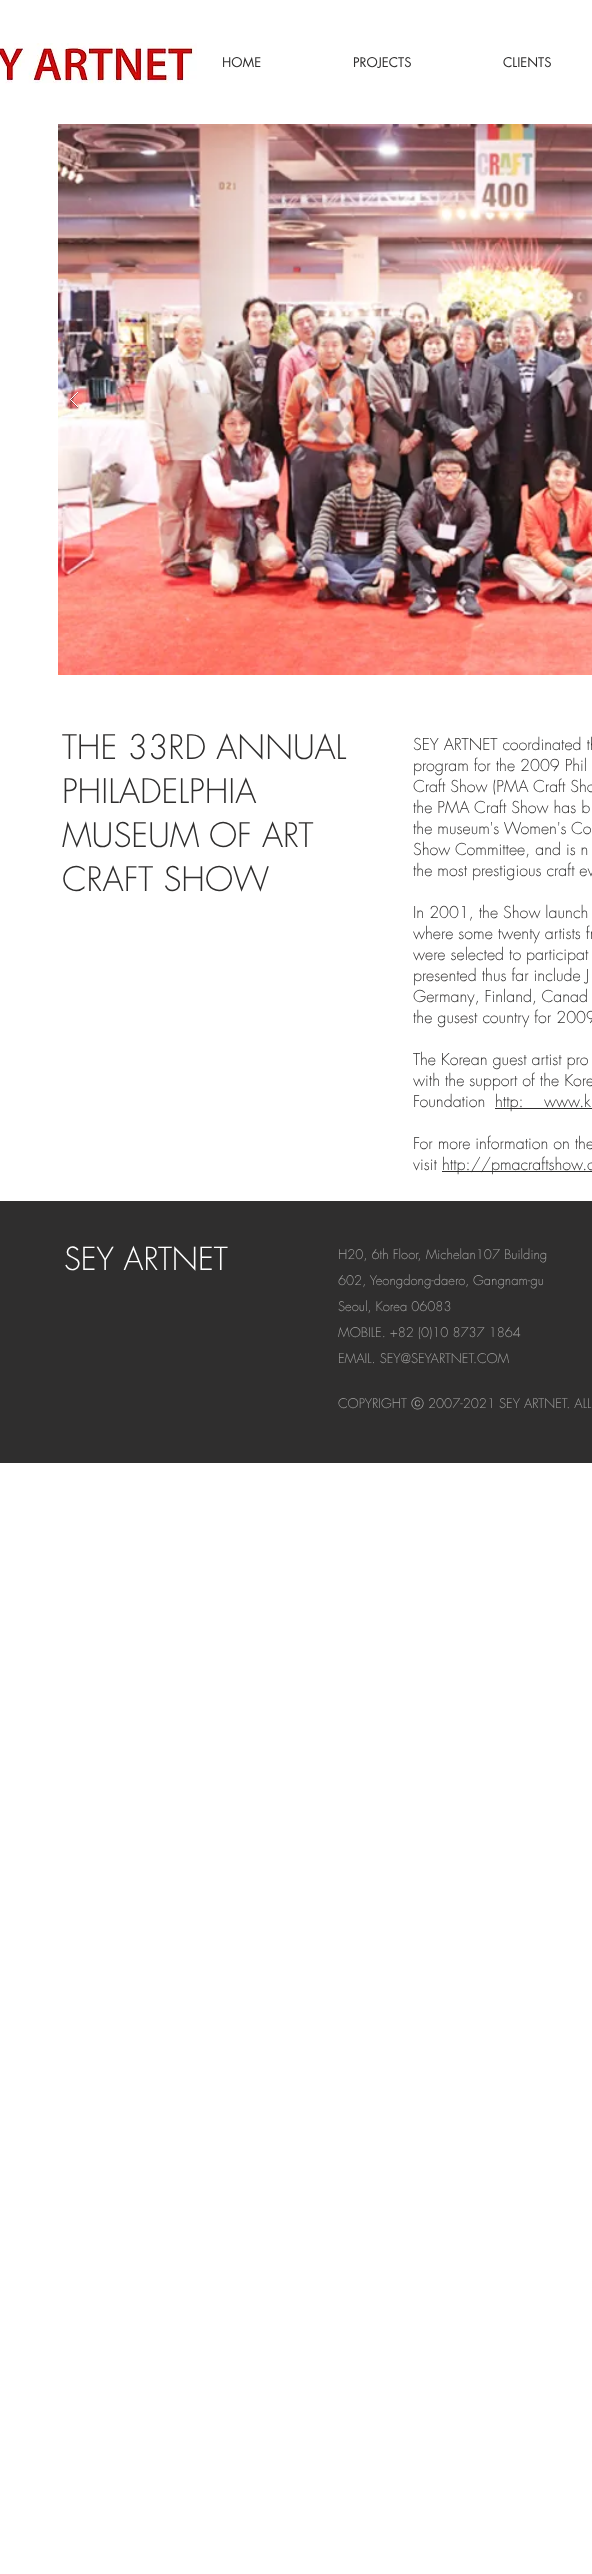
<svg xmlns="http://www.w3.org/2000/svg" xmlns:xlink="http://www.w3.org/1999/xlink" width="592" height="2574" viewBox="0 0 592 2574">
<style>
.cls-1{font:13px futura;fill:#2f2e2e}
.cls-2{font:300 33px futura;fill:#2f2e2e}
.cls-3{font:300 16px futura;fill:#2f2e2e}
.cls-4{font:300 31px futura;fill:#ffffff}
.cls-5{font:300 13px futura;fill:#a0a09f}
.cls-6{font:500 13px WenQuanYi Zen Hei;fill:#a0a09f}
</style>
<rect width="100%" height="100%" fill="#ffffff"/>
<image xlink:href="image0.png" x="0" y="43" width="197" height="41"/>
<image xlink:href="image1.png" x="58" y="124" width="534" height="551"/>
<image xlink:href="image2.png" x="70" y="392" width="8" height="16"/>
<rect fill="#2f2e2e" x="495" y="1108" width="97" height="1"/>
<rect fill="#2f2e2e" x="442" y="1171" width="150" height="1"/>
<rect fill="#2f2e2e" x="0" y="1201" width="592" height="262"/>
<text class="cls-1" x="222" y="67">HOME</text>
<text class="cls-1" x="353" y="67">PROJECTS</text>
<text class="cls-1" x="503" y="67">CLIENTS</text>
<text class="cls-2"><tspan x="62" y="759">THE 33RD ANNUAL</tspan><tspan x="62" y="803">PHILADELPHIA</tspan><tspan x="62" y="847">MUSEUM OF ART</tspan><tspan x="62" y="891">CRAFT SHOW</tspan></text>
<text class="cls-3"><tspan x="413" y="750">SEY ARTNET coordinated th</tspan><tspan x="413" y="771">program for the 2009 Phil</tspan><tspan x="413" y="792">Craft Show (PMA Craft Sho</tspan><tspan x="413" y="813">the PMA Craft Show has b</tspan><tspan x="413" y="834">the museum's Women's Co</tspan><tspan x="413" y="855">Show Committee, and is n</tspan><tspan x="413" y="876">the most prestigious craft ev</tspan></text>
<text class="cls-3"><tspan x="413" y="918">In 2001, the Show launch</tspan><tspan x="413" y="939">where some twenty artists fr</tspan><tspan x="413" y="960">were selected to participat</tspan><tspan x="413" y="981">presented thus far include J</tspan><tspan x="413" y="1002">Germany, Finland, Canad</tspan><tspan x="413" y="1023">the gusest country for 2009</tspan></text>
<text class="cls-3"><tspan x="413" y="1065">The Korean guest artist pro</tspan><tspan x="413" y="1086">with the support of the Kore</tspan><tspan x="413" y="1107">Foundation</tspan></text>
<text class="cls-3" x="495" y="1107">http:</text>
<text class="cls-3" x="544" y="1107">www.k</text>
<text class="cls-3"><tspan x="413" y="1149">For more information on the</tspan><tspan x="413" y="1170">visit</tspan></text>
<text class="cls-3" x="442" y="1170">http://pmacraftshow.o</text>
<text class="cls-4" x="64" y="1270">SEY ARTNET</text>
<text class="cls-5" x="338" y="1259">H20, 6th Floor, Michelan107 Building</text>
<text class="cls-5" x="338" y="1285">602, Yeongdong-daero, Gangnam-gu</text>
<text class="cls-5" x="338" y="1311">Seoul, Korea 06083</text>
<text class="cls-5" x="338" y="1337">MOBILE. +82 (0)10 8737 1864</text>
<text class="cls-5" x="338" y="1363">EMAIL. SEY@SEYARTNET.COM</text>
<text class="cls-5" x="338" y="1408">COPYRIGHT</text>
<text class="cls-6" x="411" y="1408">ⓒ</text>
<text class="cls-5" x="428" y="1408">2007-2021 SEY ARTNET. ALL</text>
</svg>
